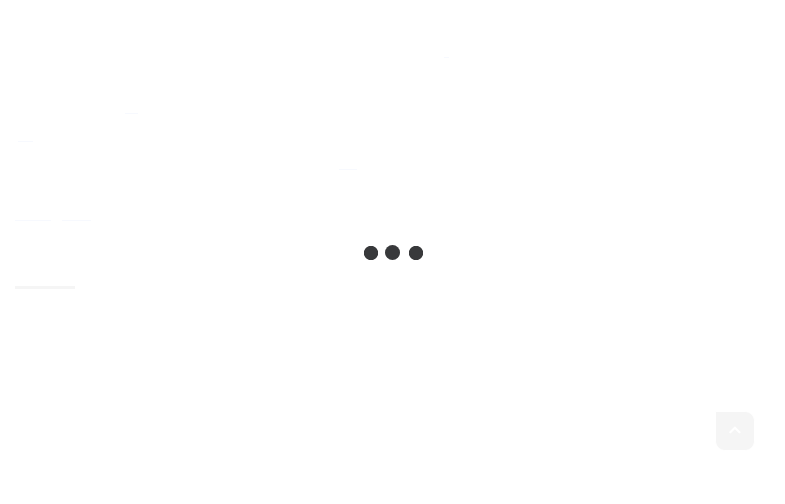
<svg xmlns="http://www.w3.org/2000/svg" xmlns:xlink="http://www.w3.org/1999/xlink" width="785" height="504" viewBox="0 0 785 504">
<defs>
<radialGradient id="g1" gradientUnits="userSpaceOnUse" cx="416" cy="253" r="7.5"><stop offset="0.9" stop-color="#38393b"/><stop offset="1" stop-color="#ffffff"/></radialGradient>
<radialGradient id="g2" gradientUnits="userSpaceOnUse" cx="371" cy="253" r="7.5"><stop offset="0.9" stop-color="#38393b"/><stop offset="1" stop-color="#ffffff"/></radialGradient>
</defs>
<rect width="100%" height="100%" fill="#ffffff"/>
<rect fill="#f7f9fe" x="444" y="57" width="5" height="1"/>
<rect fill="#f7f9fe" x="125" y="113" width="13" height="1"/>
<rect fill="#f7f9fe" x="18" y="141" width="15" height="1"/>
<rect fill="#f7f9fe" x="339" y="169" width="18" height="1"/>
<rect fill="#f7f9fe" x="15" y="220" width="36" height="1"/>
<rect fill="#f7f9fe" x="62" y="220" width="29" height="1"/>
<rect fill="#f5f5f5" x="15" y="286" width="60" height="3"/>
<rect fill="url(#g1)" x="409" y="246" width="14" height="14"/>
<rect fill="url(#g2)" x="364" y="246" width="14" height="14"/>
<circle fill="#38393b" cx="392.5" cy="252.5" r="7.5"/>
<path fill="#f5f5f5" stroke="#ffffff" d="M715.5 411.5H745C750 411.5 754.5 416 754.5 421V441C754.5 446 750 450.5 745 450.5H725C720 450.5 715.5 446 715.5 441Z"/>
<image xlink:href="image0.png" x="729" y="426" width="12" height="8"/>
</svg>
